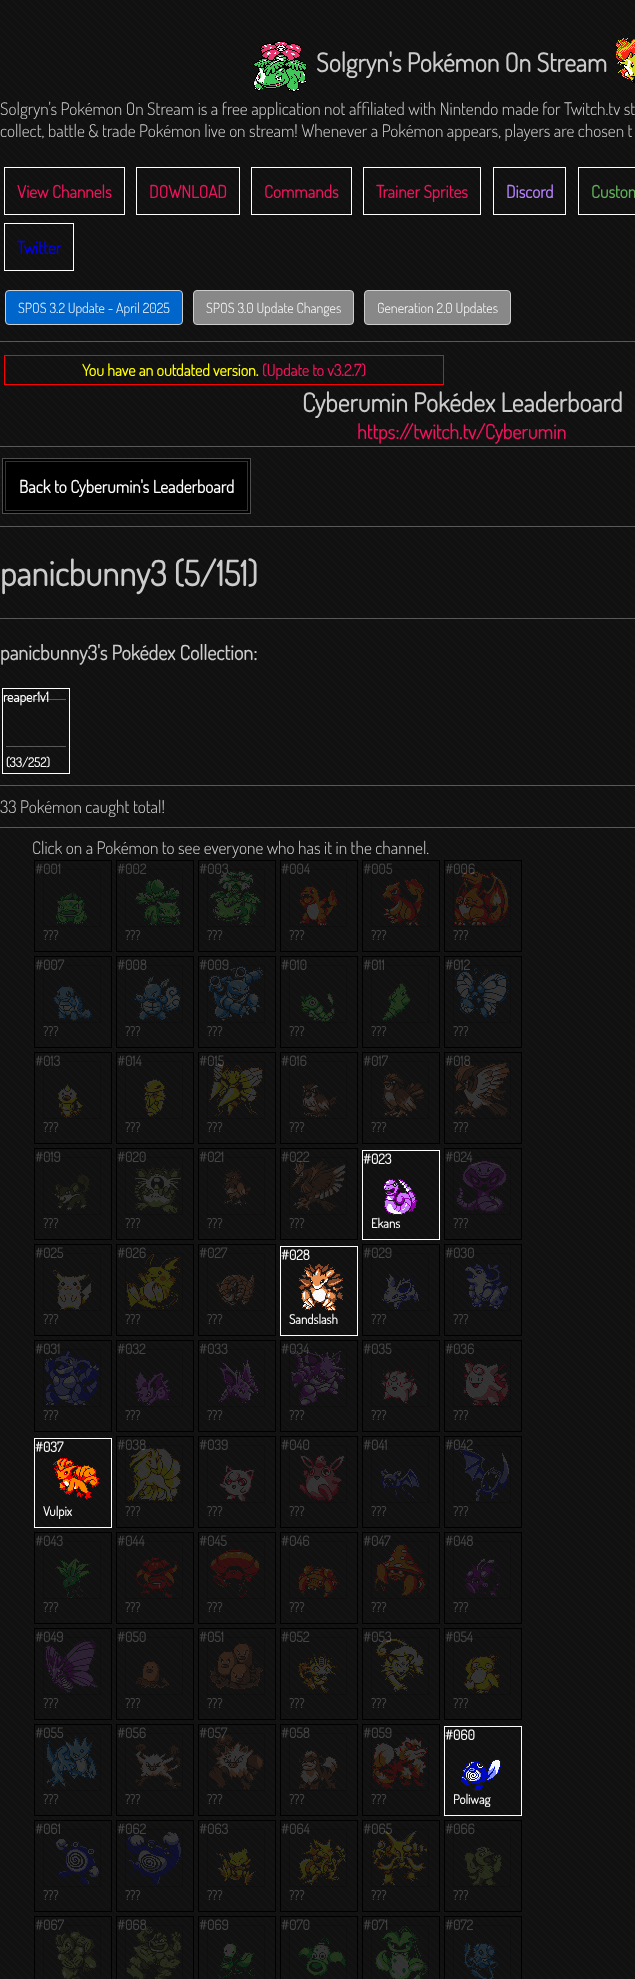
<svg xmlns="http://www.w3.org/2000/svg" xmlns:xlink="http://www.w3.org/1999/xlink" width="635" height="1979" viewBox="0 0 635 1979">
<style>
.cls-1{font:bold 26px Dosis;fill:#cccccc}
.cls-2{font:300 17.35px Dosis;fill:#cccccc}
.cls-3{font:bold 17.35px Dosis;fill:#ed145b}
.cls-4{font:bold 17.35px Dosis;fill:#b681fc}
.cls-5{font:bold 17.35px Dosis;fill:#63b05b}
.cls-6{font:bold 17.35px Dosis;fill:#0000ff}
.cls-7{font:300 14px Dosis;fill:#ffffff}
.cls-8{font:bold 16px Dosis;fill:#ffff00}
.cls-9{font:bold 16px Dosis;fill:#ed145b}
.cls-10{font:bold 20px Dosis;fill:#ed145b}
.cls-11{font:bold 17.35px Dosis;fill:#ffffff}
.cls-12{font:bold 34.75px Dosis;fill:#cccccc}
.cls-13{font:bold 20.25px Dosis;fill:#cccccc}
.cls-14{font:bold 14px Dosis;fill:#ffffff}
.cls-15{font:bold 13px Dosis;fill:#ffffff}
.cls-16{font:bold 14px Dosis;fill:#454545}
.cls-17{font:bold 13px Dosis;fill:#454545}
</style>
<rect width="100%" height="100%" fill="#111111"/>
<image xlink:href="image0.png" x="0" y="0" width="635" height="1979"/>
<image xlink:href="image1.png" x="253" y="41" width="54" height="51"/>
<image xlink:href="image2.png" x="616" y="38" width="19" height="45"/>
<rect fill="none" stroke="#ffffff" x="4.5" y="167.5" width="120" height="47"/>
<rect fill="none" stroke="#ffffff" x="136.5" y="167.5" width="103" height="47"/>
<rect fill="none" stroke="#ffffff" x="251.5" y="167.5" width="100" height="47"/>
<rect fill="none" stroke="#ffffff" x="363.5" y="167.5" width="117" height="47"/>
<rect fill="none" stroke="#ffffff" x="493.5" y="167.5" width="72" height="47"/>
<rect fill="none" stroke="#ffffff" x="578.5" y="167.5" width="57" height="47"/>
<rect fill="none" stroke="#ffffff" x="4.5" y="223.5" width="69" height="47"/>
<rect fill="#0066cc" stroke="#cccccc" x="5.5" y="290.5" width="177" height="34" rx="3.5"/>
<rect fill="#888888" stroke="#cccccc" x="193.5" y="290.5" width="160" height="34" rx="3.5"/>
<rect fill="#888888" stroke="#cccccc" x="364.5" y="290.5" width="146" height="34" rx="3.5"/>
<rect fill="#ffffff" fill-opacity="0.3" x="0" y="341" width="635" height="1"/>
<rect fill="none" stroke="#ff0000" x="4.5" y="355.5" width="439" height="29"/>
<rect fill="#ffffff" fill-opacity="0.3" x="0" y="446" width="635" height="1"/>
<rect fill="#000000" stroke="#4d4d4d" x="2.5" y="458.5" width="248" height="55"/>
<rect fill="none" stroke="#333333" x="5.5" y="461.5" width="242" height="49"/>
<rect fill="#ffffff" fill-opacity="0.3" x="0" y="526" width="635" height="1"/>
<rect fill="#ffffff" fill-opacity="0.3" x="0" y="618" width="635" height="1"/>
<rect fill="none" stroke="#ffffff" x="2.5" y="688.5" width="67" height="85"/>
<rect fill="#ffffff" fill-opacity="0.3" x="6" y="699" width="60" height="1"/>
<rect fill="#ffffff" fill-opacity="0.3" x="6" y="746" width="60" height="1"/>
<rect fill="#ffffff" fill-opacity="0.3" x="0" y="785" width="635" height="1"/>
<rect fill="#ffffff" fill-opacity="0.3" x="0" y="827" width="635" height="1"/>
<rect fill="none" stroke="#000000" x="34.5" y="860.5" width="77" height="91"/>
<rect fill="none" stroke="#000000" x="116.5" y="860.5" width="77" height="91"/>
<rect fill="none" stroke="#000000" x="198.5" y="860.5" width="77" height="91"/>
<rect fill="none" stroke="#000000" x="280.5" y="860.5" width="77" height="91"/>
<rect fill="none" stroke="#000000" x="362.5" y="860.5" width="77" height="91"/>
<rect fill="none" stroke="#000000" x="444.5" y="860.5" width="77" height="91"/>
<rect fill="none" stroke="#000000" x="34.5" y="956.5" width="77" height="91"/>
<rect fill="none" stroke="#000000" x="116.5" y="956.5" width="77" height="91"/>
<rect fill="none" stroke="#000000" x="198.5" y="956.5" width="77" height="91"/>
<rect fill="none" stroke="#000000" x="280.5" y="956.5" width="77" height="91"/>
<rect fill="none" stroke="#000000" x="362.5" y="956.5" width="77" height="91"/>
<rect fill="none" stroke="#000000" x="444.5" y="956.5" width="77" height="91"/>
<rect fill="none" stroke="#000000" x="34.5" y="1052.5" width="77" height="91"/>
<rect fill="none" stroke="#000000" x="116.5" y="1052.5" width="77" height="91"/>
<rect fill="none" stroke="#000000" x="198.5" y="1052.5" width="77" height="91"/>
<rect fill="none" stroke="#000000" x="280.5" y="1052.5" width="77" height="91"/>
<rect fill="none" stroke="#000000" x="362.5" y="1052.5" width="77" height="91"/>
<rect fill="none" stroke="#000000" x="444.5" y="1052.5" width="77" height="91"/>
<rect fill="none" stroke="#000000" x="34.5" y="1148.5" width="77" height="91"/>
<rect fill="none" stroke="#000000" x="116.5" y="1148.5" width="77" height="91"/>
<rect fill="none" stroke="#000000" x="198.5" y="1148.5" width="77" height="91"/>
<rect fill="none" stroke="#000000" x="280.5" y="1148.5" width="77" height="91"/>
<rect fill="none" stroke="#ffffff" x="362.5" y="1150.5" width="77" height="89"/>
<image xlink:href="image25.png" x="383" y="1179" width="34" height="36"/>
<rect fill="none" stroke="#000000" x="444.5" y="1148.5" width="77" height="91"/>
<rect fill="none" stroke="#000000" x="34.5" y="1244.5" width="77" height="91"/>
<rect fill="none" stroke="#000000" x="116.5" y="1244.5" width="77" height="91"/>
<rect fill="none" stroke="#000000" x="198.5" y="1244.5" width="77" height="91"/>
<rect fill="none" stroke="#ffffff" x="280.5" y="1246.5" width="77" height="89"/>
<image xlink:href="image30.png" x="298" y="1263" width="46" height="48"/>
<rect fill="none" stroke="#000000" x="362.5" y="1244.5" width="77" height="91"/>
<rect fill="none" stroke="#000000" x="444.5" y="1244.5" width="77" height="91"/>
<rect fill="none" stroke="#000000" x="34.5" y="1340.5" width="77" height="91"/>
<rect fill="none" stroke="#000000" x="116.5" y="1340.5" width="77" height="91"/>
<rect fill="none" stroke="#000000" x="198.5" y="1340.5" width="77" height="91"/>
<rect fill="none" stroke="#000000" x="280.5" y="1340.5" width="77" height="91"/>
<rect fill="none" stroke="#000000" x="362.5" y="1340.5" width="77" height="91"/>
<rect fill="none" stroke="#000000" x="444.5" y="1340.5" width="77" height="91"/>
<rect fill="none" stroke="#ffffff" x="34.5" y="1438.5" width="77" height="89"/>
<image xlink:href="image39.png" x="53" y="1458" width="46" height="41"/>
<rect fill="none" stroke="#000000" x="116.5" y="1436.5" width="77" height="91"/>
<rect fill="none" stroke="#000000" x="198.5" y="1436.5" width="77" height="91"/>
<rect fill="none" stroke="#000000" x="280.5" y="1436.5" width="77" height="91"/>
<rect fill="none" stroke="#000000" x="362.5" y="1436.5" width="77" height="91"/>
<rect fill="none" stroke="#000000" x="444.5" y="1436.5" width="77" height="91"/>
<rect fill="none" stroke="#000000" x="34.5" y="1532.5" width="77" height="91"/>
<rect fill="none" stroke="#000000" x="116.5" y="1532.5" width="77" height="91"/>
<rect fill="none" stroke="#000000" x="198.5" y="1532.5" width="77" height="91"/>
<rect fill="none" stroke="#000000" x="280.5" y="1532.5" width="77" height="91"/>
<rect fill="none" stroke="#000000" x="362.5" y="1532.5" width="77" height="91"/>
<rect fill="none" stroke="#000000" x="444.5" y="1532.5" width="77" height="91"/>
<rect fill="none" stroke="#000000" x="34.5" y="1628.5" width="77" height="91"/>
<rect fill="none" stroke="#000000" x="116.5" y="1628.5" width="77" height="91"/>
<rect fill="none" stroke="#000000" x="198.5" y="1628.5" width="77" height="91"/>
<rect fill="none" stroke="#000000" x="280.5" y="1628.5" width="77" height="91"/>
<rect fill="none" stroke="#000000" x="362.5" y="1628.5" width="77" height="91"/>
<rect fill="none" stroke="#000000" x="444.5" y="1628.5" width="77" height="91"/>
<rect fill="none" stroke="#000000" x="34.5" y="1724.5" width="77" height="91"/>
<rect fill="none" stroke="#000000" x="116.5" y="1724.5" width="77" height="91"/>
<rect fill="none" stroke="#000000" x="198.5" y="1724.5" width="77" height="91"/>
<rect fill="none" stroke="#000000" x="280.5" y="1724.5" width="77" height="91"/>
<rect fill="none" stroke="#000000" x="362.5" y="1724.5" width="77" height="91"/>
<rect fill="none" stroke="#ffffff" x="444.5" y="1726.5" width="77" height="89"/>
<image xlink:href="image62.png" x="461" y="1759" width="40" height="32"/>
<rect fill="none" stroke="#000000" x="34.5" y="1820.5" width="77" height="91"/>
<rect fill="none" stroke="#000000" x="116.5" y="1820.5" width="77" height="91"/>
<rect fill="none" stroke="#000000" x="198.5" y="1820.5" width="77" height="91"/>
<rect fill="none" stroke="#000000" x="280.5" y="1820.5" width="77" height="91"/>
<rect fill="none" stroke="#000000" x="362.5" y="1820.5" width="77" height="91"/>
<rect fill="none" stroke="#000000" x="444.5" y="1820.5" width="77" height="91"/>
<rect fill="none" stroke="#000000" x="34.5" y="1916.5" width="77" height="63"/>
<rect fill="none" stroke="#000000" x="116.5" y="1916.5" width="77" height="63"/>
<rect fill="none" stroke="#000000" x="198.5" y="1916.5" width="77" height="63"/>
<rect fill="none" stroke="#000000" x="280.5" y="1916.5" width="77" height="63"/>
<rect fill="none" stroke="#000000" x="362.5" y="1916.5" width="77" height="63"/>
<rect fill="none" stroke="#000000" x="444.5" y="1916.5" width="77" height="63"/>
<text class="cls-1" x="316" y="72">Solgryn's Pokémon On Stream</text>
<text class="cls-2"><tspan x="0" y="115">Solgryn's Pokémon On Stream is a free application not affiliated with Nintendo made for Twitch.tv st</tspan><tspan x="0" y="137">collect, battle &amp; trade Pokémon live on stream! Whenever a Pokémon appears, players are chosen t</tspan></text>
<text class="cls-3" x="17" y="198">View Channels</text>
<text class="cls-3" x="149" y="198">DOWNLOAD</text>
<text class="cls-3" x="264" y="198">Commands</text>
<text class="cls-3" x="376" y="198">Trainer Sprites</text>
<text class="cls-4" x="506" y="198">Discord</text>
<text class="cls-5" x="591" y="198">Custom</text>
<text class="cls-6" x="17" y="254">Twitter</text>
<text class="cls-7" x="18" y="313">SPOS 3.2 Update - April 2025</text>
<text class="cls-7" x="206" y="313">SPOS 3.0 Update Changes</text>
<text class="cls-7" x="377" y="313">Generation 2.0 Updates</text>
<text class="cls-8" x="82" y="376">You have an outdated version.</text>
<text class="cls-9" x="262" y="376">(Update to v3.2.7)</text>
<text class="cls-1" x="302" y="412">Cyberumin Pokédex Leaderboard</text>
<text class="cls-10" x="357" y="439">https://twitch.tv/Cyberumin</text>
<text class="cls-11" x="19" y="493">Back to Cyberumin's Leaderboard</text>
<text class="cls-12" x="0" y="586">panicbunny3 (5/151)</text>
<text class="cls-13" x="0" y="660">panicbunny3's Pokédex Collection:</text>
<text class="cls-14" x="3" y="702">reaper1v1</text>
<text class="cls-15" x="6" y="767">(33/252)</text>
<text class="cls-2" x="0" y="813">33 Pokémon caught total!</text>
<text class="cls-2" x="32" y="854">Click on a Pokémon to see everyone who has it in the channel.</text>
<text class="cls-16" x="35" y="874">#001</text>
<rect fill="none" stroke="#000000" stroke-opacity="0.15" x="43.5" y="869.5" width="57" height="57"/>
<image xlink:href="image3.png" x="56" y="892" width="31" height="32"/>
<text class="cls-17" x="43" y="940">???</text>
<text class="cls-16" x="117" y="874">#002</text>
<rect fill="none" stroke="#000000" stroke-opacity="0.15" x="125.5" y="869.5" width="57" height="57"/>
<image xlink:href="image4.png" x="135" y="879" width="46" height="47"/>
<text class="cls-17" x="125" y="940">???</text>
<text class="cls-16" x="199" y="874">#003</text>
<rect fill="none" stroke="#000000" stroke-opacity="0.15" x="207.5" y="869.5" width="57" height="57"/>
<image xlink:href="image5.png" x="209" y="871" width="52" height="55"/>
<text class="cls-17" x="207" y="940">???</text>
<text class="cls-16" x="281" y="874">#004</text>
<rect fill="none" stroke="#000000" stroke-opacity="0.15" x="289.5" y="869.5" width="57" height="57"/>
<image xlink:href="image6.png" x="299" y="886" width="38" height="40"/>
<text class="cls-17" x="289" y="940">???</text>
<text class="cls-16" x="363" y="874">#005</text>
<rect fill="none" stroke="#000000" stroke-opacity="0.15" x="371.5" y="869.5" width="57" height="57"/>
<image xlink:href="image7.png" x="382" y="879" width="42" height="47"/>
<text class="cls-17" x="371" y="940">???</text>
<text class="cls-16" x="445" y="874">#006</text>
<rect fill="none" stroke="#000000" stroke-opacity="0.15" x="453.5" y="869.5" width="57" height="57"/>
<image xlink:href="image8.png" x="454" y="871" width="55" height="55"/>
<text class="cls-17" x="453" y="940">???</text>
<text class="cls-16" x="35" y="970">#007</text>
<rect fill="none" stroke="#000000" stroke-opacity="0.15" x="43.5" y="965.5" width="57" height="57"/>
<image xlink:href="image9.png" x="53" y="986" width="39" height="35"/>
<text class="cls-17" x="43" y="1036">???</text>
<text class="cls-16" x="117" y="970">#008</text>
<rect fill="none" stroke="#000000" stroke-opacity="0.15" x="125.5" y="965.5" width="57" height="57"/>
<image xlink:href="image10.png" x="134" y="976" width="47" height="44"/>
<text class="cls-17" x="125" y="1036">???</text>
<text class="cls-16" x="199" y="970">#009</text>
<rect fill="none" stroke="#000000" stroke-opacity="0.15" x="207.5" y="965.5" width="57" height="57"/>
<image xlink:href="image11.png" x="208" y="966" width="55" height="55"/>
<text class="cls-17" x="207" y="1036">???</text>
<text class="cls-16" x="281" y="970">#010</text>
<rect fill="none" stroke="#000000" stroke-opacity="0.15" x="289.5" y="965.5" width="57" height="57"/>
<image xlink:href="image12.png" x="301" y="993" width="34" height="29"/>
<text class="cls-17" x="289" y="1036">???</text>
<text class="cls-16" x="363" y="970">#011</text>
<rect fill="none" stroke="#000000" stroke-opacity="0.15" x="371.5" y="965.5" width="57" height="57"/>
<image xlink:href="image13.png" x="382" y="983" width="28" height="38"/>
<text class="cls-17" x="371" y="1036">???</text>
<text class="cls-16" x="445" y="970">#012</text>
<rect fill="none" stroke="#000000" stroke-opacity="0.15" x="453.5" y="965.5" width="57" height="57"/>
<image xlink:href="image14.png" x="455" y="968" width="54" height="49"/>
<text class="cls-17" x="453" y="1036">???</text>
<text class="cls-16" x="35" y="1066">#013</text>
<rect fill="none" stroke="#000000" stroke-opacity="0.15" x="43.5" y="1061.5" width="57" height="57"/>
<image xlink:href="image15.png" x="58" y="1084" width="25" height="34"/>
<text class="cls-17" x="43" y="1132">???</text>
<text class="cls-16" x="117" y="1066">#014</text>
<rect fill="none" stroke="#000000" stroke-opacity="0.15" x="125.5" y="1061.5" width="57" height="57"/>
<image xlink:href="image16.png" x="144" y="1079" width="22" height="38"/>
<text class="cls-17" x="125" y="1132">???</text>
<text class="cls-16" x="199" y="1066">#015</text>
<rect fill="none" stroke="#000000" stroke-opacity="0.15" x="207.5" y="1061.5" width="57" height="57"/>
<image xlink:href="image17.png" x="209" y="1063" width="54" height="53"/>
<text class="cls-17" x="207" y="1132">???</text>
<text class="cls-16" x="281" y="1066">#016</text>
<rect fill="none" stroke="#000000" stroke-opacity="0.15" x="289.5" y="1061.5" width="57" height="57"/>
<image xlink:href="image18.png" x="302" y="1083" width="35" height="35"/>
<text class="cls-17" x="289" y="1132">???</text>
<text class="cls-16" x="363" y="1066">#017</text>
<rect fill="none" stroke="#000000" stroke-opacity="0.15" x="371.5" y="1061.5" width="57" height="57"/>
<image xlink:href="image19.png" x="382" y="1073" width="42" height="45"/>
<text class="cls-17" x="371" y="1132">???</text>
<text class="cls-16" x="445" y="1066">#018</text>
<rect fill="none" stroke="#000000" stroke-opacity="0.15" x="453.5" y="1061.5" width="57" height="57"/>
<image xlink:href="image20.png" x="454" y="1062" width="56" height="56"/>
<text class="cls-17" x="453" y="1132">???</text>
<text class="cls-16" x="35" y="1162">#019</text>
<rect fill="none" stroke="#000000" stroke-opacity="0.15" x="43.5" y="1157.5" width="57" height="57"/>
<image xlink:href="image21.png" x="52" y="1174" width="38" height="37"/>
<text class="cls-17" x="43" y="1228">???</text>
<text class="cls-16" x="117" y="1162">#020</text>
<rect fill="none" stroke="#000000" stroke-opacity="0.15" x="125.5" y="1157.5" width="57" height="57"/>
<image xlink:href="image22.png" x="134" y="1166" width="47" height="48"/>
<text class="cls-17" x="125" y="1228">???</text>
<text class="cls-16" x="199" y="1162">#021</text>
<rect fill="none" stroke="#000000" stroke-opacity="0.15" x="207.5" y="1157.5" width="57" height="57"/>
<image xlink:href="image23.png" x="223" y="1169" width="28" height="37"/>
<text class="cls-17" x="207" y="1228">???</text>
<text class="cls-16" x="281" y="1162">#022</text>
<rect fill="none" stroke="#000000" stroke-opacity="0.15" x="289.5" y="1157.5" width="57" height="57"/>
<image xlink:href="image24.png" x="290" y="1159" width="56" height="53"/>
<text class="cls-17" x="289" y="1228">???</text>
<text class="cls-14" x="363" y="1164">#023</text>
<text class="cls-15" x="371" y="1228">Ekans</text>
<text class="cls-16" x="445" y="1162">#024</text>
<rect fill="none" stroke="#000000" stroke-opacity="0.15" x="453.5" y="1157.5" width="57" height="57"/>
<image xlink:href="image26.png" x="456" y="1160" width="51" height="53"/>
<text class="cls-17" x="453" y="1228">???</text>
<text class="cls-16" x="35" y="1258">#025</text>
<rect fill="none" stroke="#000000" stroke-opacity="0.15" x="43.5" y="1253.5" width="57" height="57"/>
<image xlink:href="image27.png" x="53" y="1270" width="39" height="40"/>
<text class="cls-17" x="43" y="1324">???</text>
<text class="cls-16" x="117" y="1258">#026</text>
<rect fill="none" stroke="#000000" stroke-opacity="0.15" x="125.5" y="1253.5" width="57" height="57"/>
<image xlink:href="image28.png" x="126" y="1254" width="54" height="55"/>
<text class="cls-17" x="125" y="1324">???</text>
<text class="cls-16" x="199" y="1258">#027</text>
<rect fill="none" stroke="#000000" stroke-opacity="0.15" x="207.5" y="1253.5" width="57" height="57"/>
<image xlink:href="image29.png" x="216" y="1274" width="39" height="32"/>
<text class="cls-17" x="207" y="1324">???</text>
<text class="cls-14" x="281" y="1260">#028</text>
<text class="cls-15" x="289" y="1324">Sandslash</text>
<text class="cls-16" x="363" y="1258">#029</text>
<rect fill="none" stroke="#000000" stroke-opacity="0.15" x="371.5" y="1253.5" width="57" height="57"/>
<image xlink:href="image31.png" x="381" y="1274" width="39" height="35"/>
<text class="cls-17" x="371" y="1324">???</text>
<text class="cls-16" x="445" y="1258">#030</text>
<rect fill="none" stroke="#000000" stroke-opacity="0.15" x="453.5" y="1253.5" width="57" height="57"/>
<image xlink:href="image32.png" x="464" y="1263" width="45" height="47"/>
<text class="cls-17" x="453" y="1324">???</text>
<text class="cls-16" x="35" y="1354">#031</text>
<rect fill="none" stroke="#000000" stroke-opacity="0.15" x="43.5" y="1349.5" width="57" height="57"/>
<image xlink:href="image33.png" x="44" y="1350" width="56" height="56"/>
<text class="cls-17" x="43" y="1420">???</text>
<text class="cls-16" x="117" y="1354">#032</text>
<rect fill="none" stroke="#000000" stroke-opacity="0.15" x="125.5" y="1349.5" width="57" height="57"/>
<image xlink:href="image34.png" x="135" y="1372" width="35" height="34"/>
<text class="cls-17" x="125" y="1420">???</text>
<text class="cls-16" x="199" y="1354">#033</text>
<rect fill="none" stroke="#000000" stroke-opacity="0.15" x="207.5" y="1349.5" width="57" height="57"/>
<image xlink:href="image35.png" x="218" y="1358" width="41" height="45"/>
<text class="cls-17" x="207" y="1420">???</text>
<text class="cls-16" x="281" y="1354">#034</text>
<rect fill="none" stroke="#000000" stroke-opacity="0.15" x="289.5" y="1349.5" width="57" height="57"/>
<image xlink:href="image36.png" x="291" y="1350" width="55" height="56"/>
<text class="cls-17" x="289" y="1420">???</text>
<text class="cls-16" x="363" y="1354">#035</text>
<rect fill="none" stroke="#000000" stroke-opacity="0.15" x="371.5" y="1349.5" width="57" height="57"/>
<image xlink:href="image37.png" x="381" y="1370" width="37" height="34"/>
<text class="cls-17" x="371" y="1420">???</text>
<text class="cls-16" x="445" y="1354">#036</text>
<rect fill="none" stroke="#000000" stroke-opacity="0.15" x="453.5" y="1349.5" width="57" height="57"/>
<image xlink:href="image38.png" x="463" y="1359" width="46" height="47"/>
<text class="cls-17" x="453" y="1420">???</text>
<text class="cls-14" x="35" y="1452">#037</text>
<text class="cls-15" x="43" y="1516">Vulpix</text>
<text class="cls-16" x="117" y="1450">#038</text>
<rect fill="none" stroke="#000000" stroke-opacity="0.15" x="125.5" y="1445.5" width="57" height="57"/>
<image xlink:href="image40.png" x="127" y="1446" width="54" height="56"/>
<text class="cls-17" x="125" y="1516">???</text>
<text class="cls-16" x="199" y="1450">#039</text>
<rect fill="none" stroke="#000000" stroke-opacity="0.15" x="207.5" y="1445.5" width="57" height="57"/>
<image xlink:href="image41.png" x="219" y="1465" width="36" height="37"/>
<text class="cls-17" x="207" y="1516">???</text>
<text class="cls-16" x="281" y="1450">#040</text>
<rect fill="none" stroke="#000000" stroke-opacity="0.15" x="289.5" y="1445.5" width="57" height="57"/>
<image xlink:href="image42.png" x="299" y="1455" width="46" height="46"/>
<text class="cls-17" x="289" y="1516">???</text>
<text class="cls-16" x="363" y="1450">#041</text>
<rect fill="none" stroke="#000000" stroke-opacity="0.15" x="371.5" y="1445.5" width="57" height="57"/>
<image xlink:href="image43.png" x="380" y="1468" width="40" height="30"/>
<text class="cls-17" x="371" y="1516">???</text>
<text class="cls-16" x="445" y="1450">#042</text>
<rect fill="none" stroke="#000000" stroke-opacity="0.15" x="453.5" y="1445.5" width="57" height="57"/>
<image xlink:href="image44.png" x="454" y="1448" width="56" height="53"/>
<text class="cls-17" x="453" y="1516">???</text>
<text class="cls-16" x="35" y="1546">#043</text>
<rect fill="none" stroke="#000000" stroke-opacity="0.15" x="43.5" y="1541.5" width="57" height="57"/>
<image xlink:href="image45.png" x="55" y="1558" width="36" height="40"/>
<text class="cls-17" x="43" y="1612">???</text>
<text class="cls-16" x="117" y="1546">#044</text>
<rect fill="none" stroke="#000000" stroke-opacity="0.15" x="125.5" y="1541.5" width="57" height="57"/>
<image xlink:href="image46.png" x="136" y="1557" width="42" height="41"/>
<text class="cls-17" x="125" y="1612">???</text>
<text class="cls-16" x="199" y="1546">#045</text>
<rect fill="none" stroke="#000000" stroke-opacity="0.15" x="207.5" y="1541.5" width="57" height="57"/>
<image xlink:href="image47.png" x="210" y="1549" width="50" height="48"/>
<text class="cls-17" x="207" y="1612">???</text>
<text class="cls-16" x="281" y="1546">#046</text>
<rect fill="none" stroke="#000000" stroke-opacity="0.15" x="289.5" y="1541.5" width="57" height="57"/>
<image xlink:href="image48.png" x="298" y="1565" width="40" height="32"/>
<text class="cls-17" x="289" y="1612">???</text>
<text class="cls-16" x="363" y="1546">#047</text>
<rect fill="none" stroke="#000000" stroke-opacity="0.15" x="371.5" y="1541.5" width="57" height="57"/>
<image xlink:href="image49.png" x="374" y="1544" width="52" height="52"/>
<text class="cls-17" x="371" y="1612">???</text>
<text class="cls-16" x="445" y="1546">#048</text>
<rect fill="none" stroke="#000000" stroke-opacity="0.15" x="453.5" y="1541.5" width="57" height="57"/>
<image xlink:href="image50.png" x="465" y="1558" width="35" height="39"/>
<text class="cls-17" x="453" y="1612">???</text>
<text class="cls-16" x="35" y="1642">#049</text>
<rect fill="none" stroke="#000000" stroke-opacity="0.15" x="43.5" y="1637.5" width="57" height="57"/>
<image xlink:href="image51.png" x="45" y="1640" width="53" height="53"/>
<text class="cls-17" x="43" y="1708">???</text>
<text class="cls-16" x="117" y="1642">#050</text>
<rect fill="none" stroke="#000000" stroke-opacity="0.15" x="125.5" y="1637.5" width="57" height="57"/>
<image xlink:href="image52.png" x="136" y="1661" width="33" height="27"/>
<text class="cls-17" x="125" y="1708">???</text>
<text class="cls-16" x="199" y="1642">#051</text>
<rect fill="none" stroke="#000000" stroke-opacity="0.15" x="207.5" y="1637.5" width="57" height="57"/>
<image xlink:href="image53.png" x="210" y="1643" width="53" height="46"/>
<text class="cls-17" x="207" y="1708">???</text>
<text class="cls-16" x="281" y="1642">#052</text>
<rect fill="none" stroke="#000000" stroke-opacity="0.15" x="289.5" y="1637.5" width="57" height="57"/>
<image xlink:href="image54.png" x="298" y="1654" width="39" height="39"/>
<text class="cls-17" x="289" y="1708">???</text>
<text class="cls-16" x="363" y="1642">#053</text>
<rect fill="none" stroke="#000000" stroke-opacity="0.15" x="371.5" y="1637.5" width="57" height="57"/>
<image xlink:href="image55.png" x="376" y="1638" width="48" height="54"/>
<text class="cls-17" x="371" y="1708">???</text>
<text class="cls-16" x="445" y="1642">#054</text>
<rect fill="none" stroke="#000000" stroke-opacity="0.15" x="453.5" y="1637.5" width="57" height="57"/>
<image xlink:href="image56.png" x="464" y="1654" width="36" height="40"/>
<text class="cls-17" x="453" y="1708">???</text>
<text class="cls-16" x="35" y="1738">#055</text>
<rect fill="none" stroke="#000000" stroke-opacity="0.15" x="43.5" y="1733.5" width="57" height="57"/>
<image xlink:href="image57.png" x="46" y="1736" width="51" height="51"/>
<text class="cls-17" x="43" y="1804">???</text>
<text class="cls-16" x="117" y="1738">#056</text>
<rect fill="none" stroke="#000000" stroke-opacity="0.15" x="125.5" y="1733.5" width="57" height="57"/>
<image xlink:href="image58.png" x="135" y="1744" width="46" height="45"/>
<text class="cls-17" x="125" y="1804">???</text>
<text class="cls-16" x="199" y="1738">#057</text>
<rect fill="none" stroke="#000000" stroke-opacity="0.15" x="207.5" y="1733.5" width="57" height="57"/>
<image xlink:href="image59.png" x="209" y="1734" width="55" height="56"/>
<text class="cls-17" x="207" y="1804">???</text>
<text class="cls-16" x="281" y="1738">#058</text>
<rect fill="none" stroke="#000000" stroke-opacity="0.15" x="289.5" y="1733.5" width="57" height="57"/>
<image xlink:href="image60.png" x="299" y="1750" width="39" height="40"/>
<text class="cls-17" x="289" y="1804">???</text>
<text class="cls-16" x="363" y="1738">#059</text>
<rect fill="none" stroke="#000000" stroke-opacity="0.15" x="371.5" y="1733.5" width="57" height="57"/>
<image xlink:href="image61.png" x="372" y="1736" width="56" height="53"/>
<text class="cls-17" x="371" y="1804">???</text>
<text class="cls-14" x="445" y="1740">#060</text>
<text class="cls-15" x="453" y="1804">Poliwag</text>
<text class="cls-16" x="35" y="1834">#061</text>
<rect fill="none" stroke="#000000" stroke-opacity="0.15" x="43.5" y="1829.5" width="57" height="57"/>
<image xlink:href="image63.png" x="55" y="1838" width="45" height="48"/>
<text class="cls-17" x="43" y="1900">???</text>
<text class="cls-16" x="117" y="1834">#062</text>
<rect fill="none" stroke="#000000" stroke-opacity="0.15" x="125.5" y="1829.5" width="57" height="57"/>
<image xlink:href="image64.png" x="126" y="1831" width="56" height="54"/>
<text class="cls-17" x="125" y="1900">???</text>
<text class="cls-16" x="199" y="1834">#063</text>
<rect fill="none" stroke="#000000" stroke-opacity="0.15" x="207.5" y="1829.5" width="57" height="57"/>
<image xlink:href="image65.png" x="216" y="1848" width="40" height="37"/>
<text class="cls-17" x="207" y="1900">???</text>
<text class="cls-16" x="281" y="1834">#064</text>
<rect fill="none" stroke="#000000" stroke-opacity="0.15" x="289.5" y="1829.5" width="57" height="57"/>
<image xlink:href="image66.png" x="298" y="1839" width="48" height="46"/>
<text class="cls-17" x="289" y="1900">???</text>
<text class="cls-16" x="363" y="1834">#065</text>
<rect fill="none" stroke="#000000" stroke-opacity="0.15" x="371.5" y="1829.5" width="57" height="57"/>
<image xlink:href="image67.png" x="372" y="1831" width="55" height="54"/>
<text class="cls-17" x="371" y="1900">???</text>
<text class="cls-16" x="445" y="1834">#066</text>
<rect fill="none" stroke="#000000" stroke-opacity="0.15" x="453.5" y="1829.5" width="57" height="57"/>
<image xlink:href="image68.png" x="464" y="1846" width="38" height="40"/>
<text class="cls-17" x="453" y="1900">???</text>
<text class="cls-16" x="35" y="1930">#067</text>
<rect fill="none" stroke="#000000" stroke-opacity="0.15" x="43.5" y="1925.5" width="57" height="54"/>
<image xlink:href="image69.png" x="55" y="1931" width="42" height="48"/>
<text class="cls-16" x="117" y="1930">#068</text>
<rect fill="none" stroke="#000000" stroke-opacity="0.15" x="125.5" y="1925.5" width="57" height="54"/>
<image xlink:href="image70.png" x="126" y="1926" width="56" height="53"/>
<text class="cls-16" x="199" y="1930">#069</text>
<rect fill="none" stroke="#000000" stroke-opacity="0.15" x="207.5" y="1925.5" width="57" height="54"/>
<image xlink:href="image71.png" x="218" y="1943" width="37" height="36"/>
<text class="cls-16" x="281" y="1930">#070</text>
<rect fill="none" stroke="#000000" stroke-opacity="0.15" x="289.5" y="1925.5" width="57" height="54"/>
<image xlink:href="image72.png" x="298" y="1938" width="48" height="38"/>
<text class="cls-16" x="363" y="1930">#071</text>
<rect fill="none" stroke="#000000" stroke-opacity="0.15" x="371.5" y="1925.5" width="57" height="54"/>
<image xlink:href="image73.png" x="375" y="1926" width="53" height="53"/>
<text class="cls-16" x="445" y="1930">#072</text>
<rect fill="none" stroke="#000000" stroke-opacity="0.15" x="453.5" y="1925.5" width="57" height="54"/>
<image xlink:href="image74.png" x="464" y="1943" width="34" height="36"/>
</svg>
